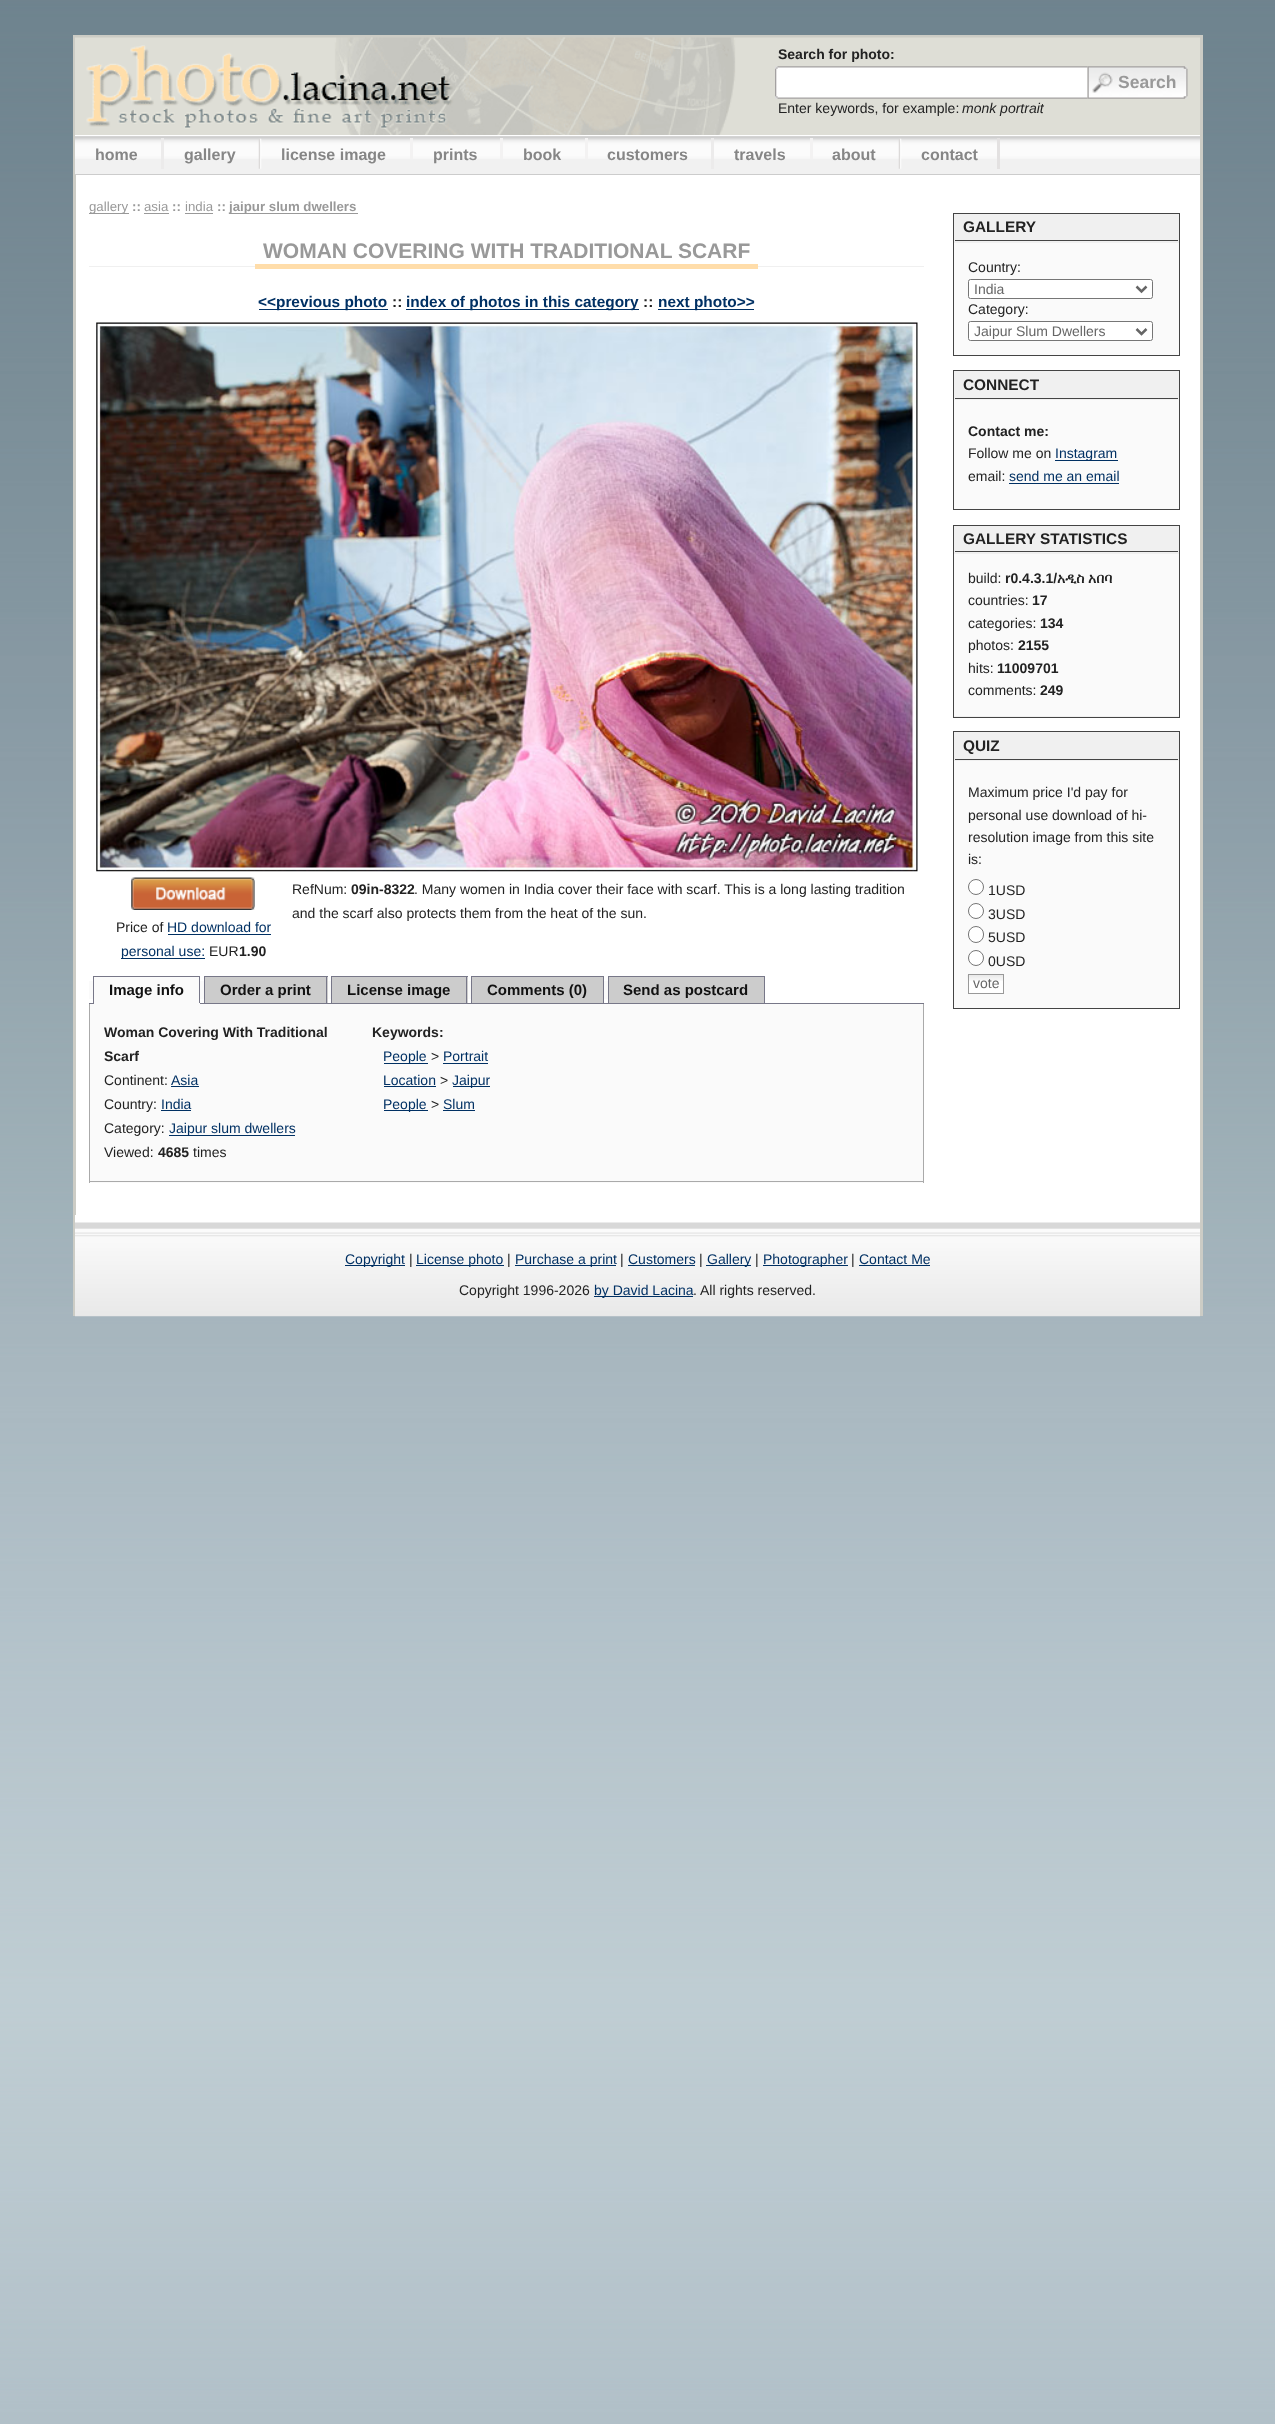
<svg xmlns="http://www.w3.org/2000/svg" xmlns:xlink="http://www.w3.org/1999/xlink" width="1275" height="2424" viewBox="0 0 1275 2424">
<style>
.cls-1{font:bold 14px Liberation Sans;fill:#222222}
.cls-2{font:bold 17.5px Liberation Sans;fill:#999999}
.cls-3{font:14px Liberation Sans;fill:#222222}
.cls-4{font:italic 14px Liberation Sans;fill:#222222}
.cls-5{font:bold 16px Liberation Sans;fill:#868686}
.cls-6{font:13.25px Liberation Sans;fill:#999999}
.cls-7{font:bold 13.25px Liberation Sans;fill:#999999}
.cls-8{font:bold 21px Liberation Sans;fill:#999999}
.cls-9{font:bold 15.4px Liberation Sans;fill:#003063}
.cls-10{font:bold 15.4px Liberation Sans;fill:#222222}
.cls-11{font:14px Liberation Sans;fill:#003063}
.cls-12{font:bold 15px Liberation Sans;fill:#111111}
.cls-13{font:14px Liberation Sans;fill:#666666}
.cls-14{font:bold 14px FreeSerif;fill:#222222}
</style>
<rect width="100%" height="100%" fill="#ffffff"/>
<image xlink:href="image0.png" x="0" y="0" width="1275" height="2424"/>
<rect fill="#ccccc5" x="73" y="35" width="1130" height="3"/>
<rect fill="#ccccc5" x="1200" y="35" width="3" height="1281"/>
<rect fill="#ccccc5" x="73" y="35" width="3" height="1281"/>
<image xlink:href="image1.png" x="75" y="37" width="1125" height="98"/>
<image xlink:href="image2.png" x="775" y="66" width="313" height="33"/>
<image xlink:href="image3.png" x="1087" y="66" width="101" height="33"/>
<rect fill="#f1f1f1" x="75" y="136" width="1125" height="38"/>
<image xlink:href="image4.png" x="75" y="136" width="1125" height="23"/>
<rect fill="#ffffff" x="75" y="135" width="1125" height="1"/>
<rect fill="#cccccc" x="75" y="174" width="1125" height="1"/>
<rect fill="#ecebeb" x="161" y="138" width="3" height="31"/>
<image xlink:href="image5.png" x="258" y="138" width="4" height="31"/>
<rect fill="#f3f2f2" x="410" y="138" width="3" height="21"/>
<rect fill="#f3f2f2" x="500" y="138" width="3" height="21"/>
<rect fill="#f3f2f2" x="585" y="138" width="3" height="21"/>
<rect fill="#ecebeb" x="711" y="138" width="3" height="31"/>
<rect fill="#f3f2f2" x="810" y="138" width="3" height="21"/>
<image xlink:href="image5.png" x="898" y="138" width="4" height="31"/>
<rect fill="#e3e1e1" x="997" y="138" width="3" height="31"/>
<rect fill="#ffffff" x="76" y="175" width="1124" height="1040"/>
<rect fill="#999999" x="89" y="213" width="40" height="1"/>
<rect fill="#999999" x="144" y="213" width="25" height="1"/>
<rect fill="#999999" x="185" y="213" width="28" height="1"/>
<rect fill="#999999" x="229" y="213" width="129" height="1"/>
<rect fill="#f0f0f0" x="89" y="266" width="835" height="1"/>
<rect fill="#ffddaa" x="255" y="264" width="503" height="5"/>
<rect fill="#003063" x="259" y="309" width="129" height="1"/>
<rect fill="#003063" x="406" y="309" width="233" height="1"/>
<rect fill="#003063" x="658" y="309" width="96" height="1"/>
<image xlink:href="image6.png" x="96" y="322" width="822" height="550"/>
<image xlink:href="image7.png" x="131" y="877" width="124" height="33"/>
<rect fill="#003063" x="168" y="934" width="103" height="1"/>
<rect fill="#003063" x="121" y="958" width="84" height="1"/>
<rect fill="#777788" x="89" y="1003" width="835" height="1"/>
<rect fill="#fafafa" x="89" y="981" width="4" height="18"/>
<rect fill="#fafafa" x="94" y="977" width="105" height="26"/>
<rect fill="#777788" x="93" y="976" width="107" height="1"/>
<rect fill="#777788" x="199" y="976" width="1" height="28"/>
<rect fill="#fafafa" x="93" y="1003" width="107" height="1"/>
<rect fill="#777788" x="93" y="976" width="1" height="28"/>
<rect fill="#fafafa" x="200" y="981" width="4" height="18"/>
<rect fill="#cccccc" x="205" y="977" width="123" height="26"/>
<rect fill="#777788" x="204" y="976" width="124" height="1"/>
<rect fill="#777788" x="326" y="976" width="1" height="27"/>
<rect fill="#777788" x="204" y="976" width="1" height="27"/>
<rect fill="#fafafa" x="328" y="981" width="3" height="18"/>
<rect fill="#cccccc" x="332" y="977" width="136" height="26"/>
<rect fill="#777788" x="331" y="976" width="137" height="1"/>
<rect fill="#777788" x="466" y="976" width="1" height="27"/>
<rect fill="#777788" x="331" y="976" width="1" height="27"/>
<rect fill="#fafafa" x="468" y="981" width="3" height="18"/>
<rect fill="#cccccc" x="472" y="977" width="131" height="26"/>
<rect fill="#777788" x="471" y="976" width="133" height="1"/>
<rect fill="#777788" x="603" y="976" width="1" height="27"/>
<rect fill="#777788" x="471" y="976" width="1" height="27"/>
<rect fill="#fafafa" x="604" y="981" width="4" height="18"/>
<rect fill="#cccccc" x="609" y="977" width="155" height="26"/>
<rect fill="#777788" x="608" y="976" width="157" height="1"/>
<rect fill="#777788" x="764" y="976" width="1" height="27"/>
<rect fill="#777788" x="608" y="976" width="1" height="27"/>
<rect fill="#fafafa" x="90" y="1004" width="833" height="179"/>
<rect fill="#aaaaaa" x="923" y="1004" width="1" height="179"/>
<rect fill="#aaaaaa" x="89" y="1181" width="835" height="1"/>
<rect fill="#aaaaaa" x="89" y="1004" width="1" height="179"/>
<rect fill="#003063" x="171" y="1086" width="28" height="1"/>
<rect fill="#003063" x="161" y="1110" width="30" height="1"/>
<rect fill="#003063" x="169" y="1135" width="126" height="1"/>
<rect fill="#003063" x="384" y="1063" width="44" height="1"/>
<rect fill="#003063" x="443" y="1063" width="45" height="1"/>
<rect fill="#003063" x="384" y="1086" width="52" height="1"/>
<rect fill="#003063" x="453" y="1086" width="37" height="1"/>
<rect fill="#003063" x="384" y="1110" width="44" height="1"/>
<rect fill="#003063" x="443" y="1110" width="32" height="1"/>
<rect fill="#f0f0f0" x="954" y="214" width="225" height="29"/>
<rect fill="none" stroke="#444444" x="953.5" y="213.5" width="226" height="142"/>
<rect fill="#444444" x="955" y="240" width="223" height="1"/>
<rect fill="#fafafa" x="954" y="243" width="225" height="112"/>
<rect fill="#ffffff" stroke="#767676" x="968.5" y="279.5" width="184" height="19" rx="2"/>
<path fill="none" stroke="#666666" stroke-width="2.5" d="M1136.5 286.5L1141.5 291.5L1146.5 286.5"/>
<rect fill="#ffffff" stroke="#767676" x="968.5" y="321.5" width="184" height="19" rx="2"/>
<path fill="none" stroke="#666666" stroke-width="2.5" d="M1136.5 329L1141.5 334L1146.5 329"/>
<rect fill="#f0f0f0" x="954" y="371" width="225" height="29"/>
<rect fill="none" stroke="#444444" x="953.5" y="370.5" width="226" height="139"/>
<rect fill="#444444" x="955" y="398" width="223" height="1"/>
<rect fill="#fafafa" x="954" y="400" width="225" height="109"/>
<rect fill="#003063" x="1055" y="460" width="63" height="1"/>
<rect fill="#003063" x="1009" y="483" width="110" height="1"/>
<rect fill="#f0f0f0" stroke="#444444" x="953.5" y="525.5" width="226" height="192"/>
<rect fill="#444444" x="955" y="551" width="223" height="1"/>
<rect fill="#fafafa" x="954" y="554" width="225" height="162"/>
<rect fill="#f0f0f0" x="954" y="732" width="225" height="29"/>
<rect fill="none" stroke="#444444" x="953.5" y="731.5" width="226" height="277"/>
<rect fill="#444444" x="955" y="759" width="223" height="1"/>
<rect fill="#fafafa" x="954" y="761" width="225" height="247"/>
<circle fill="#ffffff" stroke="#767676" cx="976" cy="887" r="7.5"/>
<circle fill="#ffffff" stroke="#767676" cx="976" cy="911" r="7.5"/>
<rect fill="#ffffff" stroke="#767676" x="968.5" y="926.5" width="15" height="16" rx="7.5"/>
<circle fill="#ffffff" stroke="#767676" cx="976" cy="958" r="7.5"/>
<rect fill="#ffffff" x="969" y="981" width="34" height="12"/>
<image xlink:href="image8.png" x="967" y="975" width="36" height="6"/>
<rect fill="none" stroke="#999999" x="968.5" y="974.5" width="35" height="19"/>
<image xlink:href="image9.png" x="75" y="1215" width="1125" height="102"/>
<rect fill="#003063" x="345" y="1265" width="60" height="1"/>
<rect fill="#003063" x="416" y="1265" width="88" height="1"/>
<rect fill="#003063" x="515" y="1265" width="101" height="1"/>
<rect fill="#003063" x="628" y="1265" width="67" height="1"/>
<rect fill="#003063" x="706" y="1265" width="45" height="1"/>
<rect fill="#003063" x="763" y="1265" width="85" height="1"/>
<rect fill="#003063" x="859" y="1265" width="71" height="1"/>
<rect fill="#003063" x="594" y="1296" width="99" height="1"/>
<text class="cls-1" x="778" y="59">Search for photo:</text>
<text class="cls-2" x="1118" y="88">Search</text>
<text class="cls-3" x="778" y="113">Enter keywords, for example:</text>
<text class="cls-4" x="962" y="113">monk portrait</text>
<text class="cls-5" x="95" y="160">home</text>
<text class="cls-5" x="184" y="160">gallery</text>
<text class="cls-5" x="281" y="160">license image</text>
<text class="cls-5" x="433" y="160">prints</text>
<text class="cls-5" x="523" y="160">book</text>
<text class="cls-5" x="607" y="160">customers</text>
<text class="cls-5" x="734" y="160">travels</text>
<text class="cls-5" x="832" y="160">about</text>
<text class="cls-5" x="921" y="160">contact</text>
<text class="cls-6" x="89" y="211">gallery</text>
<text class="cls-7" x="132" y="211">::</text>
<text class="cls-6" x="144" y="211">asia</text>
<text class="cls-7" x="172" y="211">::</text>
<text class="cls-6" x="185" y="211">india</text>
<text class="cls-7" x="217" y="211">::</text>
<text class="cls-7" x="229" y="211">jaipur slum dwellers</text>
<text class="cls-8" x="263" y="258">WOMAN COVERING WITH TRADITIONAL SCARF</text>
<text class="cls-9" x="258" y="307">&lt;&lt;previous photo</text>
<text class="cls-10" x="392" y="307">::</text>
<text class="cls-9" x="406" y="307">index of photos in this category</text>
<text class="cls-10" x="643" y="307">::</text>
<text class="cls-9" x="658" y="307">next photo&gt;&gt;</text>
<text class="cls-3" x="292" y="894">RefNum:</text>
<text class="cls-1" x="351" y="894">09in-8322</text>
<text class="cls-3" x="414" y="894">. Many women in India cover their face with scarf. This is a long lasting tradition</text>
<text class="cls-3" x="292" y="918">and the scarf also protects them from the heat of the sun.</text>
<text class="cls-3" x="116" y="932">Price of</text>
<text class="cls-11" x="167" y="932">HD download for</text>
<text class="cls-11" x="121" y="956">personal use:</text>
<text class="cls-3" x="209" y="956">EUR</text>
<text class="cls-1" x="239" y="956">1.90</text>
<text class="cls-12" x="109" y="995">Image info</text>
<text class="cls-12" x="220" y="995">Order a print</text>
<text class="cls-12" x="347" y="995">License image</text>
<text class="cls-12" x="487" y="995">Comments (0)</text>
<text class="cls-12" x="623" y="995">Send as postcard</text>
<text class="cls-1"><tspan x="104" y="1037">Woman Covering With Traditional</tspan><tspan x="104" y="1061">Scarf</tspan></text>
<text class="cls-3" x="104" y="1085">Continent:</text>
<text class="cls-11" x="171" y="1085">Asia</text>
<text class="cls-3" x="104" y="1109">Country:</text>
<text class="cls-11" x="161" y="1109">India</text>
<text class="cls-3" x="104" y="1133">Category:</text>
<text class="cls-11" x="169" y="1133">Jaipur slum dwellers</text>
<text class="cls-3" x="104" y="1157">Viewed:</text>
<text class="cls-1" x="158" y="1157">4685</text>
<text class="cls-3" x="193" y="1157">times</text>
<text class="cls-1" x="372" y="1037">Keywords:</text>
<text class="cls-11" x="383" y="1061">People</text>
<text class="cls-3" x="431" y="1061">&gt;</text>
<text class="cls-11" x="443" y="1061">Portrait</text>
<text class="cls-11" x="383" y="1085">Location</text>
<text class="cls-3" x="440" y="1085">&gt;</text>
<text class="cls-11" x="452" y="1085">Jaipur</text>
<text class="cls-11" x="383" y="1109">People</text>
<text class="cls-3" x="431" y="1109">&gt;</text>
<text class="cls-11" x="443" y="1109">Slum</text>
<text class="cls-10" x="963" y="232">GALLERY</text>
<text class="cls-3" x="968" y="272">Country:</text>
<text class="cls-13" x="974" y="294">India</text>
<text class="cls-3" x="968" y="314">Category:</text>
<text class="cls-13" x="974" y="336">Jaipur Slum Dwellers</text>
<text class="cls-10" x="963" y="390">CONNECT</text>
<text class="cls-1" x="968" y="436">Contact me:</text>
<text class="cls-3" x="968" y="458">Follow me on</text>
<text class="cls-11" x="1055" y="458">Instagram</text>
<text class="cls-3" x="968" y="481">email:</text>
<text class="cls-11" x="1009" y="481">send me an email</text>
<text class="cls-10" x="963" y="544">GALLERY STATISTICS</text>
<text class="cls-3" x="968" y="583">build:</text>
<text class="cls-1" x="1005" y="583">r0.4.3.1/</text>
<text class="cls-14" x="1057" y="583">አዲስ አበባ</text>
<text class="cls-3" x="968" y="605">countries:</text>
<text class="cls-1" x="1032" y="605">17</text>
<text class="cls-3" x="968" y="628">categories:</text>
<text class="cls-1" x="1040" y="628">134</text>
<text class="cls-3" x="968" y="650">photos:</text>
<text class="cls-1" x="1018" y="650">2155</text>
<text class="cls-3" x="968" y="673">hits:</text>
<text class="cls-1" x="997" y="673">11009701</text>
<text class="cls-3" x="968" y="695">comments:</text>
<text class="cls-1" x="1040" y="695">249</text>
<text class="cls-10" x="963" y="751">QUIZ</text>
<text class="cls-3"><tspan x="968" y="797">Maximum price I'd pay for</tspan><tspan x="968" y="820">personal use download of hi-</tspan><tspan x="968" y="842">resolution image from this site</tspan><tspan x="968" y="864">is:</tspan></text>
<text class="cls-3"><tspan x="988" y="895">1USD</tspan><tspan x="988" y="919">3USD</tspan><tspan x="988" y="942">5USD</tspan><tspan x="988" y="966">0USD</tspan></text>
<text class="cls-13" x="973" y="988">vote</text>
<text class="cls-11" x="345" y="1264">Copyright</text>
<text class="cls-3" x="409" y="1264">|</text>
<text class="cls-11" x="416" y="1264">License photo</text>
<text class="cls-3" x="507" y="1264">|</text>
<text class="cls-11" x="515" y="1264">Purchase a print</text>
<text class="cls-3" x="620" y="1264">|</text>
<text class="cls-11" x="628" y="1264">Customers</text>
<text class="cls-3" x="699" y="1264">|</text>
<text class="cls-11" x="707" y="1264">Gallery</text>
<text class="cls-3" x="755" y="1264">|</text>
<text class="cls-11" x="763" y="1264">Photographer</text>
<text class="cls-3" x="851" y="1264">|</text>
<text class="cls-11" x="859" y="1264">Contact Me</text>
<text class="cls-3" x="459" y="1295">Copyright 1996-2026</text>
<text class="cls-11" x="594" y="1295">by David Lacina</text>
<text class="cls-3" x="693" y="1295">. All rights reserved.</text>
</svg>
